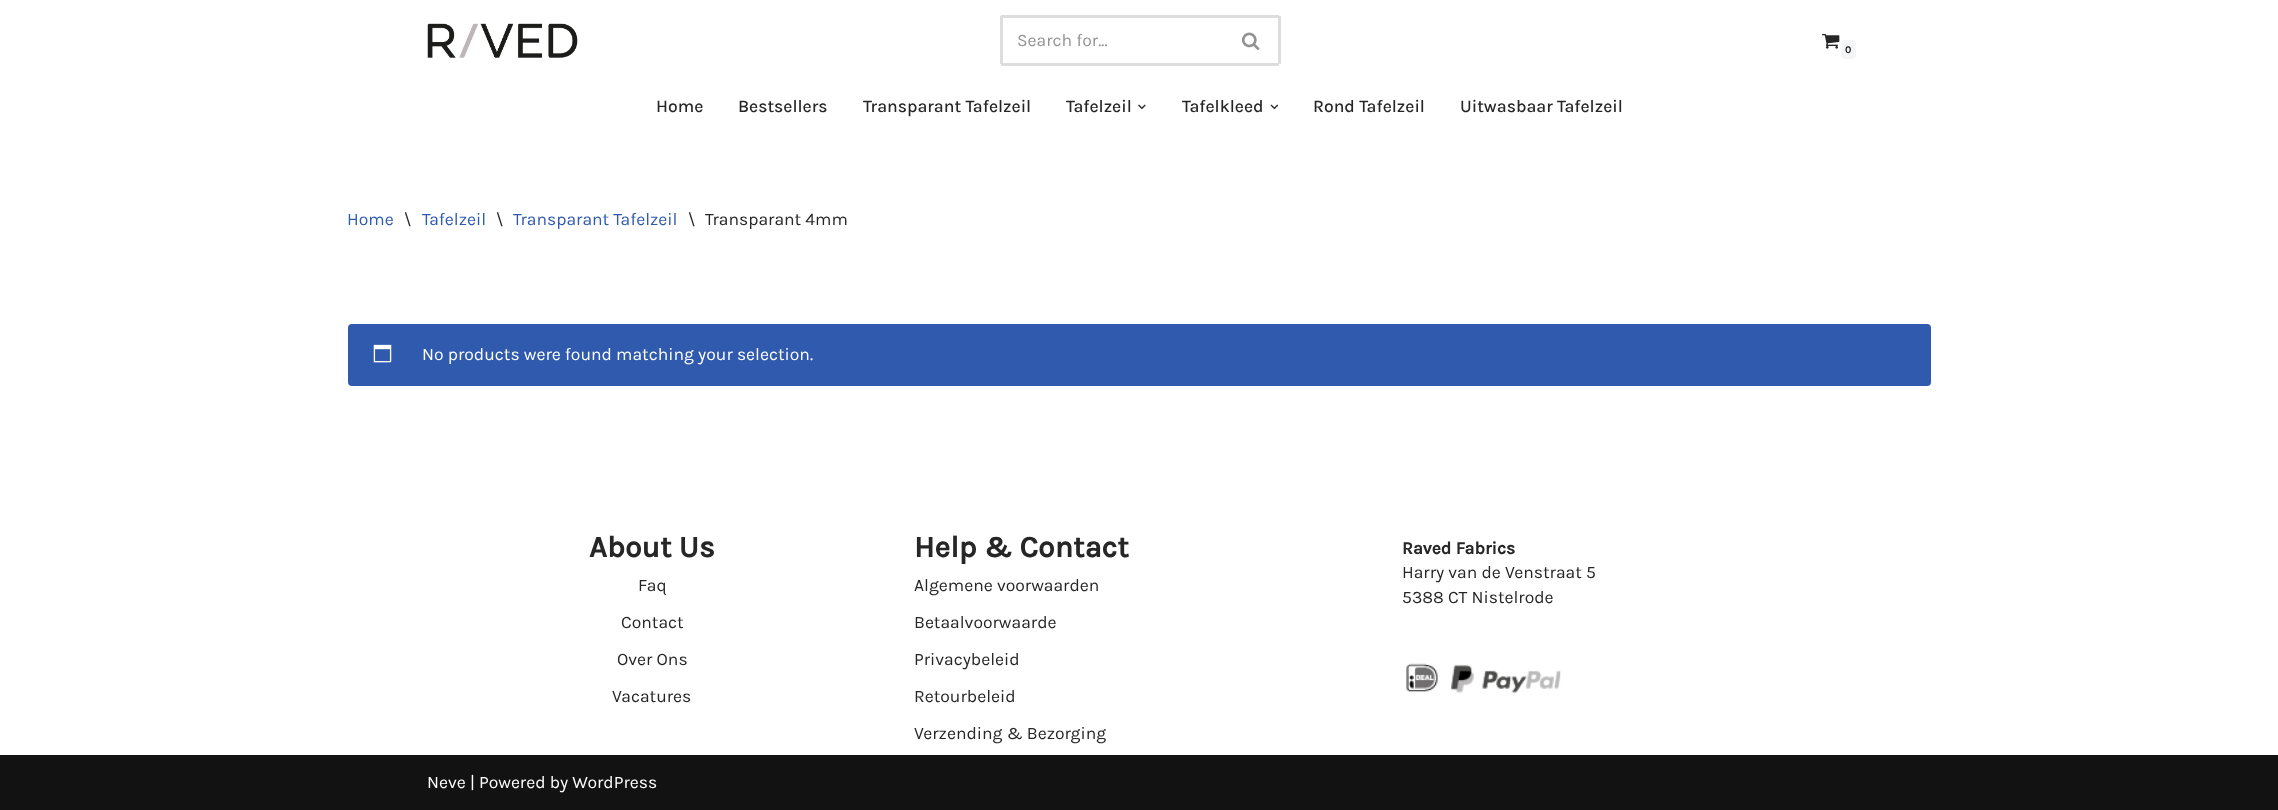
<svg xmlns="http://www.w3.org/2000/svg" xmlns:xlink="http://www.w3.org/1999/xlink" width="2278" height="810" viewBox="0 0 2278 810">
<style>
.cls-1{font:17.5px Karla;fill:#939393}
.cls-2{font:bold 10px Karla;fill:#272626}
.cls-3{font:500 17.5px Karla;fill:#272626}
.cls-4{font:17.5px Karla;fill:#2f5aae}
.cls-5{font:17.5px Karla;fill:#272626}
.cls-6{font:17.5px Karla;fill:#ffffff}
.cls-7{font:bold 30px Karla;fill:#272626}
.cls-8{font:bold 17.5px Karla;fill:#272626}
</style>
<rect width="100%" height="100%" fill="#ffffff"/>
<image xlink:href="image0.png" x="427" y="23" width="151" height="35"/>
<rect fill="#dddddd" x="1001" y="15" width="278" height="3"/>
<rect fill="#dddddd" x="1001" y="63" width="223" height="3"/>
<rect fill="#dddddd" x="1000" y="16" width="3" height="48"/>
<rect fill="#dddddd" x="1278" y="16" width="3" height="48"/>
<rect fill="#dddddd" x="1224" y="63" width="55" height="3"/>
<image xlink:href="image1.png" x="1242" y="32" width="18" height="18"/>
<image xlink:href="image2.png" x="1822" y="33" width="18" height="16"/>
<rect fill="#f4f5f7" x="1841" y="40" width="15" height="19" rx="4"/>
<image xlink:href="image3.png" x="1138" y="104" width="8" height="6"/>
<image xlink:href="image4.png" x="1270" y="104" width="9" height="6"/>
<rect fill="#2f5aae" x="348" y="324" width="1583" height="62" rx="4"/>
<image xlink:href="image5.png" x="373" y="344" width="19" height="19"/>
<image xlink:href="image6.png" x="1406" y="663" width="155" height="30"/>
<rect fill="#121212" x="0" y="755" width="2278" height="55"/>
<text class="cls-1" x="1017" y="46">Search for...</text>
<text class="cls-2" x="1845" y="53">0</text>
<text class="cls-3" x="656" y="112">Home</text>
<text class="cls-3" x="738" y="112">Bestsellers</text>
<text class="cls-3" x="863" y="112">Transparant Tafelzeil</text>
<text class="cls-3" x="1066" y="112">Tafelzeil</text>
<text class="cls-3" x="1182" y="112">Tafelkleed</text>
<text class="cls-3" x="1313" y="112">Rond Tafelzeil</text>
<text class="cls-3" x="1460" y="112">Uitwasbaar Tafelzeil</text>
<text class="cls-4" x="347" y="225">Home</text>
<text class="cls-5" x="404" y="225">\</text>
<text class="cls-4" x="422" y="225">Tafelzeil</text>
<text class="cls-5" x="496" y="225">\</text>
<text class="cls-4" x="513" y="225">Transparant Tafelzeil</text>
<text class="cls-5" x="688" y="225">\</text>
<text class="cls-5" x="705" y="225">Transparant 4mm</text>
<text class="cls-6" x="422" y="360">No products were found matching your selection.</text>
<text class="cls-7" x="589" y="557">About Us</text>
<text class="cls-5" x="638" y="591">Faq</text>
<text class="cls-5" x="621" y="628">Contact</text>
<text class="cls-5" x="617" y="665">Over Ons</text>
<text class="cls-5" x="612" y="702">Vacatures</text>
<text class="cls-7" x="914" y="557">Help &amp; Contact</text>
<text class="cls-5" x="914" y="591">Algemene voorwaarden</text>
<text class="cls-5" x="914" y="628">Betaalvoorwaarde</text>
<text class="cls-5" x="914" y="665">Privacybeleid</text>
<text class="cls-5" x="914" y="702">Retourbeleid</text>
<text class="cls-5" x="914" y="739">Verzending &amp; Bezorging</text>
<text class="cls-8" x="1402" y="554">Raved Fabrics</text>
<text class="cls-5"><tspan x="1402" y="578">Harry van de Venstraat 5</tspan><tspan x="1402" y="603">5388 CT Nistelrode</tspan></text>
<text class="cls-6" x="427" y="788">Neve | Powered by WordPress</text>
</svg>
